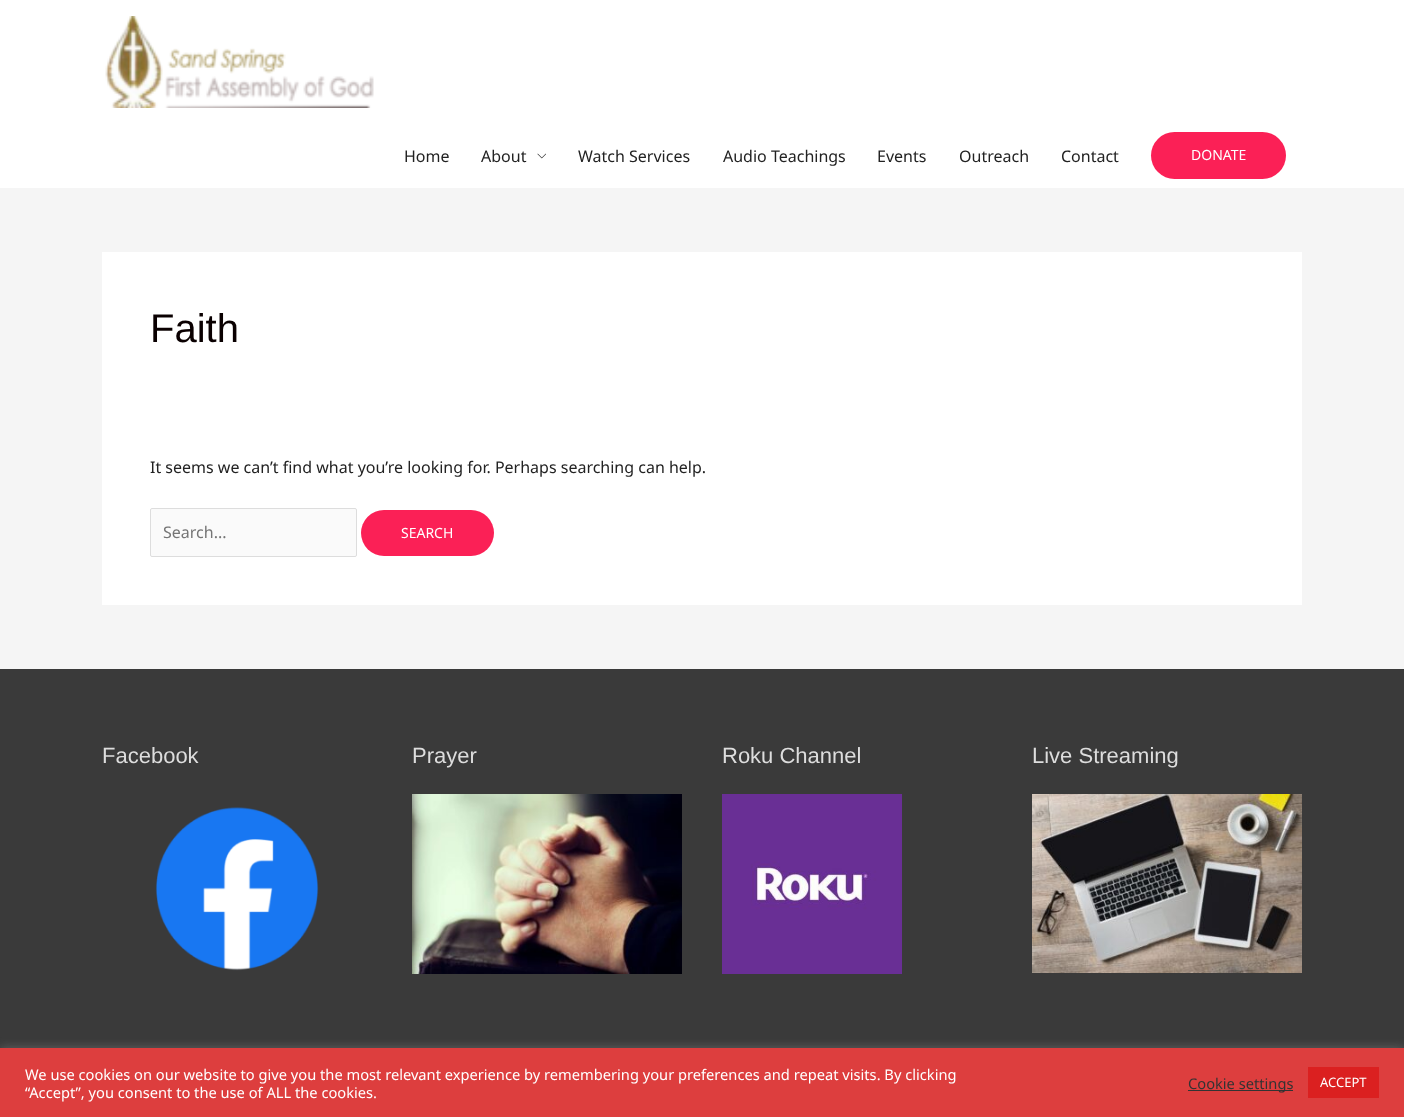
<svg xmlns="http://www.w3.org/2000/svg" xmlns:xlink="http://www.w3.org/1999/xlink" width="1404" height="1117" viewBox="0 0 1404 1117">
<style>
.cls-1{font:16px Noto Sans;fill:#222222}
.cls-2{font:14px Noto Sans;fill:#ffffff}
.cls-3{font:40px Liberation Sans;fill:#0a0001}
.cls-4{font:16px Noto Sans;fill:#757575}
.cls-5{font:22px Liberation Sans;fill:#dddddd}
.cls-6{font:14.67px Noto Sans;fill:#ffffff}
.cls-7{font:14.67px Noto Sans;fill:#333333}
.cls-8{font:13px Noto Sans;fill:#ffffff}
</style>
<rect width="100%" height="100%" fill="#f5f5f5"/>
<rect fill="#ffffff" x="0" y="0" width="1404" height="188"/>
<image xlink:href="image0.png" x="105" y="16" width="269" height="92"/>
<image xlink:href="image1.png" x="537" y="153" width="9" height="6"/>
<rect fill="#fb2056" x="1151" y="132" width="135" height="47" rx="23.5"/>
<rect fill="#ffffff" x="102" y="252" width="1200" height="353"/>
<rect fill="#fafafa" stroke="#dddddd" x="150.5" y="508.5" width="206" height="48" rx="1.5"/>
<rect fill="#fb2056" x="361" y="510" width="133" height="46" rx="23"/>
<rect fill="#3a3a3a" x="0" y="669" width="1404" height="379"/>
<image xlink:href="image2.png" x="155" y="807" width="164" height="164"/>
<image xlink:href="image3.png" x="412" y="794" width="270" height="180"/>
<image xlink:href="image4.png" x="722" y="794" width="180" height="180"/>
<image xlink:href="image5.png" x="1032" y="794" width="270" height="179"/>
<rect fill="#acabab" fill-opacity="0.3" filter="blur(5px)" x="0" y="1047" width="1404" height="69"/>
<rect fill="#dd3e3e" x="0" y="1048" width="1404" height="69"/>
<rect fill="#333333" x="1188" y="1090" width="105" height="1"/>
<rect fill="#db2020" x="1308" y="1067" width="71" height="31"/>
<text class="cls-1" x="404" y="162">Home</text>
<text class="cls-1" x="481" y="162">About</text>
<text class="cls-1" x="578" y="162">Watch Services</text>
<text class="cls-1" x="723" y="162">Audio Teachings</text>
<text class="cls-1" x="877" y="162">Events</text>
<text class="cls-1" x="959" y="162">Outreach</text>
<text class="cls-1" x="1061" y="162">Contact</text>
<text class="cls-2" x="1191" y="160">DONATE</text>
<text class="cls-3" x="150" y="342">Faith</text>
<text class="cls-1" x="150" y="473">It seems we can’t find what you’re looking for. Perhaps searching can help.</text>
<text class="cls-4" x="163" y="538">Search...</text>
<text class="cls-2" x="401" y="538">SEARCH</text>
<text class="cls-5" x="102" y="763">Facebook</text>
<text class="cls-5" x="412" y="763">Prayer</text>
<text class="cls-5" x="722" y="763">Roku Channel</text>
<text class="cls-5" x="1032" y="763">Live Streaming</text>
<text class="cls-6"><tspan x="25" y="1080">We use cookies on our website to give you the most relevant experience by remembering your preferences and repeat visits. By clicking</tspan><tspan x="25" y="1098">“Accept”, you consent to the use of ALL the cookies.</tspan></text>
<text class="cls-7" x="1188" y="1089">Cookie settings</text>
<text class="cls-8" x="1320" y="1087">ACCEPT</text>
</svg>
